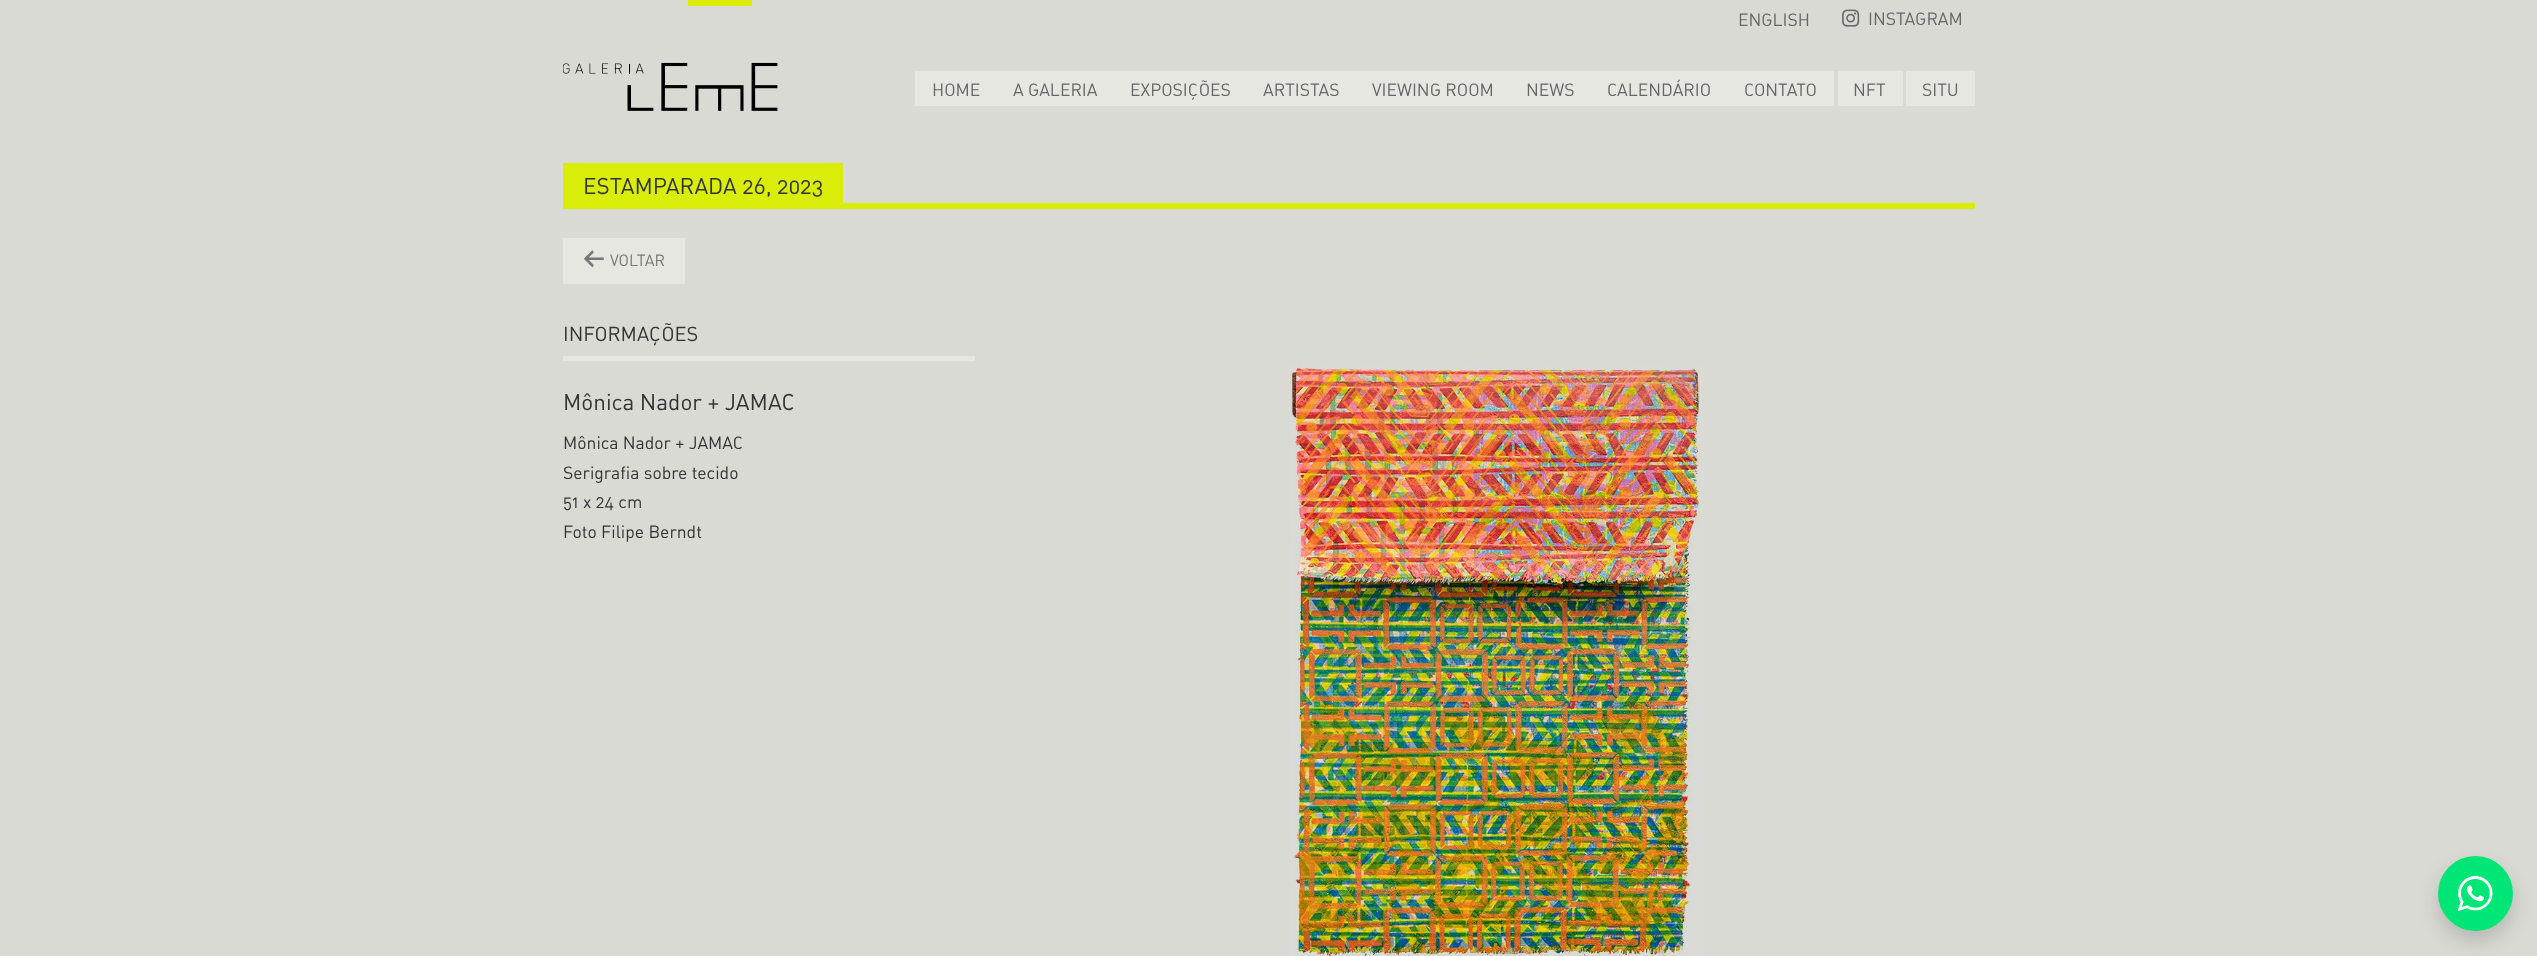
<svg xmlns="http://www.w3.org/2000/svg" xmlns:xlink="http://www.w3.org/1999/xlink" width="2537" height="956" viewBox="0 0 2537 956">
<style>
.cls-1{font:17.5px DIN;fill:#666666}
.cls-2{font:22.5px DIN;fill:#333333}
.cls-3{font:16px DIN;fill:#777777}
.cls-4{font:20px DIN;fill:#333333}
.cls-5{font:17.5px DIN;fill:#333333}
</style>
<rect width="100%" height="100%" fill="#dadad5"/>
<image xlink:href="image0.png" x="563" y="0" width="215" height="111"/>
<image xlink:href="image1.png" x="1842" y="9" width="18" height="18"/>
<rect fill="#e7e7e2" x="915" y="71" width="919" height="35"/>
<rect fill="#e7e7e2" x="1838" y="71" width="65" height="35"/>
<rect fill="#e7e7e2" x="1906" y="71" width="69" height="35"/>
<rect fill="#d9ed09" x="563" y="203" width="1412" height="6"/>
<rect fill="#d9ed09" x="563" y="163" width="280" height="40"/>
<rect fill="#e7e7e2" x="563" y="238" width="122" height="46"/>
<image xlink:href="image2.png" x="583" y="250" width="21" height="18"/>
<rect fill="#e7e7e2" x="563" y="356" width="412" height="5"/>
<image xlink:href="image3.png" x="1290" y="365" width="414" height="591"/>
<rect fill="#000000" fill-opacity="0.16" filter="blur(10px)" x="2438" y="866" width="75" height="75" rx="37.5"/>
<circle fill="#00e676" cx="2475.5" cy="893.5" r="37.5"/>
<image xlink:href="image4.png" x="2458" y="876" width="35" height="35"/>
<text class="cls-1" x="1738" y="26">ENGLISH</text>
<text class="cls-1" x="1868" y="25">INSTAGRAM</text>
<text class="cls-1" x="932" y="96">HOME</text>
<text class="cls-1" x="1013" y="96">A GALERIA</text>
<text class="cls-1" x="1130" y="96">EXPOSIÇÕES</text>
<text class="cls-1" x="1263" y="96">ARTISTAS</text>
<text class="cls-1" x="1372" y="96">VIEWING ROOM</text>
<text class="cls-1" x="1526" y="96">NEWS</text>
<text class="cls-1" x="1607" y="96">CALENDÁRIO</text>
<text class="cls-1" x="1744" y="96">CONTATO</text>
<text class="cls-1" x="1853" y="96">NFT</text>
<text class="cls-1" x="1922" y="96">SITU</text>
<text class="cls-2" x="583" y="194">ESTAMPARADA 26, 2023</text>
<text class="cls-3" x="610" y="266">VOLTAR</text>
<text class="cls-4" x="563" y="341">INFORMAÇÕES</text>
<text class="cls-2" x="563" y="410">Mônica Nador + JAMAC</text>
<text class="cls-5"><tspan x="563" y="449">Mônica Nador + JAMAC</tspan><tspan x="563" y="479">Serigrafia sobre tecido</tspan><tspan x="563" y="508">51 x 24 cm</tspan><tspan x="563" y="538">Foto Filipe Berndt</tspan></text>
</svg>
